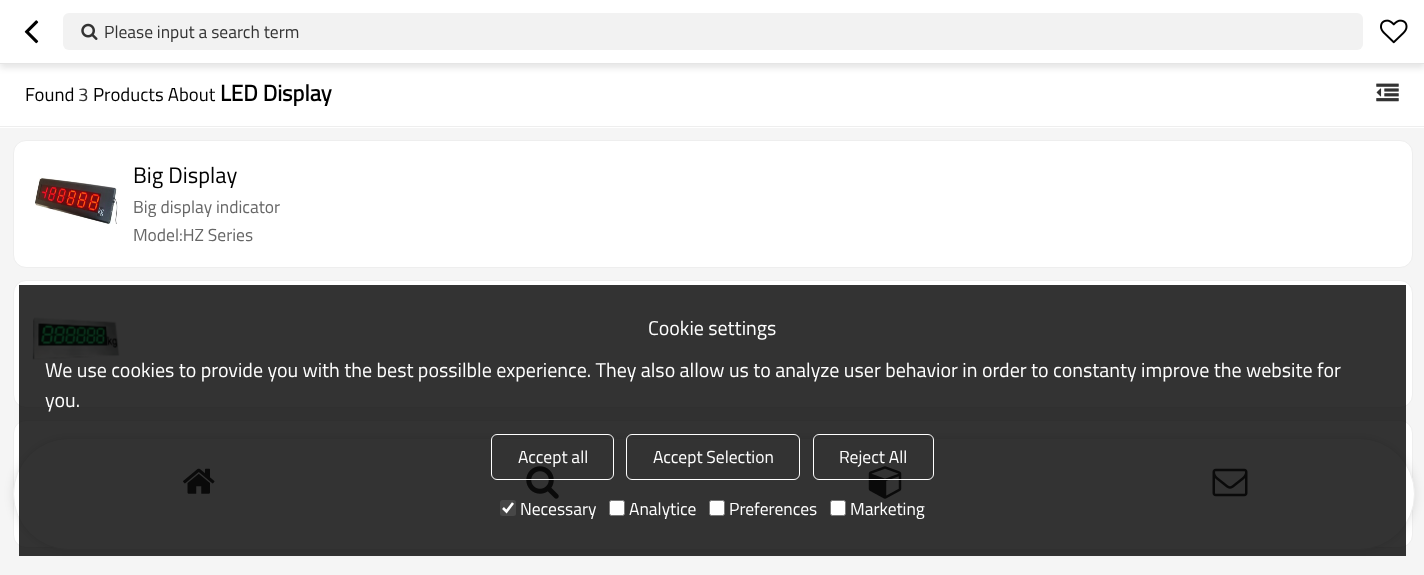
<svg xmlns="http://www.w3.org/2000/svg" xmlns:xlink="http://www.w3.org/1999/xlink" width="1424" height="575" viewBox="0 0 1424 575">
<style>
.cls-1{font:17.5px Titillium Web;fill:#333333}
.cls-2{font:18.75px Titillium Web;fill:#000000}
.cls-3{font:18.75px Titillium Web;fill:#333333}
.cls-4{font:bold 22.5px Titillium Web;fill:#000000}
.cls-5{font:22.5px Titillium Web;fill:#000000}
.cls-6{font:17.5px Titillium Web;fill:#666666}
.cls-7{font:20px Titillium Web;fill:#ffffff}
.cls-8{font:17.5px Titillium Web;fill:#ffffff}
</style>
<rect width="100%" height="100%" fill="#f5f5f5"/>
<rect fill="#ffffff" x="0" y="64" width="1424" height="64"/>
<rect fill="#000000" fill-opacity="0.1" filter="blur(3px)" x="0" y="4" width="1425" height="64"/>
<rect fill="#ffffff" x="0" y="0" width="1424" height="63"/>
<rect fill="#e5e5e5" x="0" y="63" width="1424" height="1"/>
<image xlink:href="image0.png" x="24" y="20" width="15" height="24"/>
<rect fill="#f2f2f2" x="63" y="13" width="1300" height="37" rx="6"/>
<image xlink:href="image1.png" x="81" y="23" width="17" height="17"/>
<image xlink:href="image2.png" x="1380" y="19" width="28" height="25"/>
<rect fill="#eeeeee" x="0" y="126" width="1424" height="1"/>
<image xlink:href="image3.png" x="1376" y="83" width="23" height="19"/>
<rect fill="#ffffff" stroke="#eeeeee" x="13.5" y="140.5" width="1399" height="127" rx="12.5"/>
<image xlink:href="image4.png" x="35" y="177" width="83" height="47"/>
<rect fill="#ffffff" stroke="#eeeeee" x="13.5" y="280.5" width="1399" height="127" rx="12.5"/>
<image xlink:href="image5.png" x="32" y="317" width="88" height="43"/>
<rect fill="#ffffff" stroke="#eeeeee" x="13.5" y="420.5" width="1399" height="127" rx="12.5"/>
<rect fill="#000000" fill-opacity="0.1" filter="blur(5px)" x="13" y="438" width="1402" height="112" rx="56"/>
<rect fill="#ffffff" stroke="#eeeeee" x="13.5" y="438.5" width="1401" height="111" rx="55.5"/>
<image xlink:href="image6.png" x="183" y="468" width="32" height="26"/>
<image xlink:href="image7.png" x="526" y="466" width="33" height="33"/>
<image xlink:href="image8.png" x="868" y="466" width="34" height="33"/>
<image xlink:href="image9.png" x="1212" y="468" width="36" height="29"/>
<rect fill="#000000" fill-opacity="0.8" x="19" y="285" width="1387" height="271"/>
<rect fill="none" stroke="#ffffff" x="491.5" y="434.5" width="122" height="45" rx="5.5"/>
<rect fill="none" stroke="#ffffff" x="626.5" y="434.5" width="173" height="45" rx="5.5"/>
<rect fill="none" stroke="#ffffff" x="813.5" y="434.5" width="120" height="45" rx="5.5"/>
<rect fill="#474747" x="500" y="500" width="16" height="16" rx="2.5"/>
<path fill="none" stroke="#ffffff" stroke-width="2.6" d="M503 508L506.5 511.5L513 503"/>
<rect fill="#ffffff" stroke="#767676" x="609.5" y="500.5" width="15" height="15" rx="2"/>
<rect fill="#ffffff" stroke="#767676" x="709.5" y="500.5" width="15" height="15" rx="2"/>
<rect fill="#ffffff" stroke="#767676" x="830.5" y="500.5" width="15" height="15" rx="2"/>
<text class="cls-1" x="104" y="38">Please input a search term</text>
<text class="cls-2" x="25" y="101">Found</text>
<text class="cls-3" x="78" y="101">3</text>
<text class="cls-2" x="93" y="101">Products About</text>
<text class="cls-4" x="220" y="101">LED Display</text>
<text class="cls-5" x="133" y="183">Big Display</text>
<text class="cls-6"><tspan x="133" y="213">Big display indicator</tspan><tspan x="133" y="241">Model:HZ Series</tspan></text>
<text class="cls-7" x="648" y="335">Cookie settings</text>
<text class="cls-7"><tspan x="45" y="377">We use cookies to provide you with the best possilble experience. They also allow us to analyze user behavior in order to constanty improve the website for</tspan><tspan x="45" y="407">you.</tspan></text>
<text class="cls-8" x="518" y="463">Accept all</text>
<text class="cls-8" x="653" y="463">Accept Selection</text>
<text class="cls-8" x="839" y="463">Reject All</text>
<text class="cls-8" x="520" y="515">Necessary</text>
<text class="cls-8" x="629" y="515">Analytice</text>
<text class="cls-8" x="729" y="515">Preferences</text>
<text class="cls-8" x="850" y="515">Marketing</text>
</svg>
